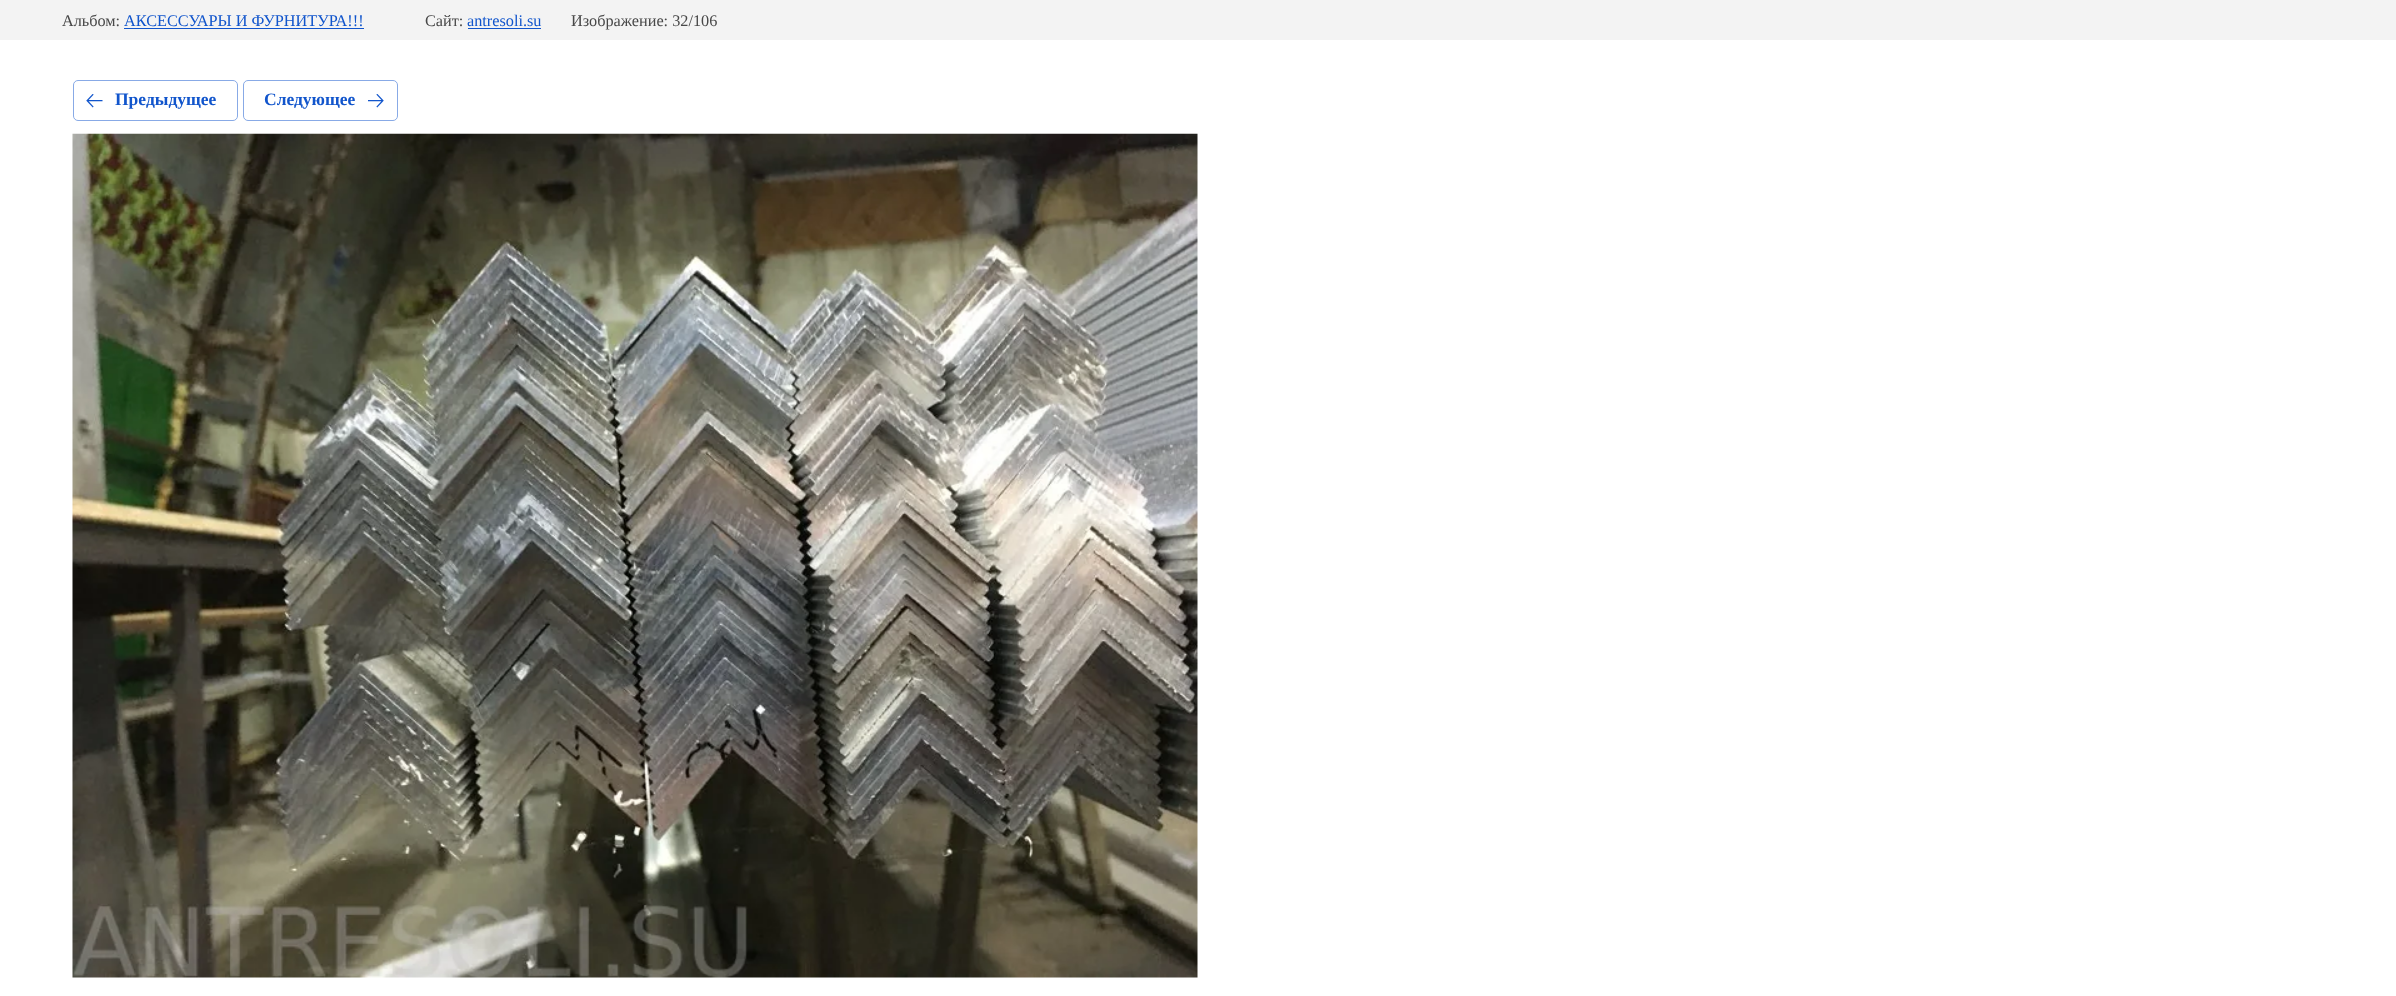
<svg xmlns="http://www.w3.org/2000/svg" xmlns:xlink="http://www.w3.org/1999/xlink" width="2396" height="996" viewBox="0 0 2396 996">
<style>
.cls-1{font:16.25px Liberation Serif;fill:#484848}
.cls-2{font:16.25px Liberation Serif;fill:#1155cc}
.cls-3{font:bold 17.5px Liberation Serif;fill:#1155cc}
</style>
<rect width="100%" height="100%" fill="#ffffff"/>
<rect fill="#f3f3f3" x="0" y="0" width="2396" height="40"/>
<rect fill="#1155cc" x="124" y="28" width="240" height="1"/>
<rect fill="#1155cc" x="468" y="28" width="73" height="1"/>
<rect fill="none" stroke="#88aae6" x="73.5" y="80.5" width="164" height="40" rx="4.5"/>
<image xlink:href="image0.png" x="86" y="94" width="17" height="14"/>
<rect fill="none" stroke="#88aae6" x="243.5" y="80.5" width="154" height="40" rx="4.5"/>
<image xlink:href="image1.png" x="368" y="94" width="16" height="14"/>
<image xlink:href="image2.png" x="72" y="133" width="1126" height="845"/>
<text class="cls-1" x="62" y="26">Альбом:</text>
<text class="cls-2" x="124" y="26">АКСЕССУАРЫ И ФУРНИТУРА!!!</text>
<text class="cls-1" x="425" y="26">Сайт:</text>
<text class="cls-2" x="467" y="26">antresoli.su</text>
<text class="cls-1" x="571" y="26">Изображение: 32/106</text>
<text class="cls-3" x="115" y="105">Предыдущее</text>
<text class="cls-3" x="264" y="105">Следующее</text>
</svg>
